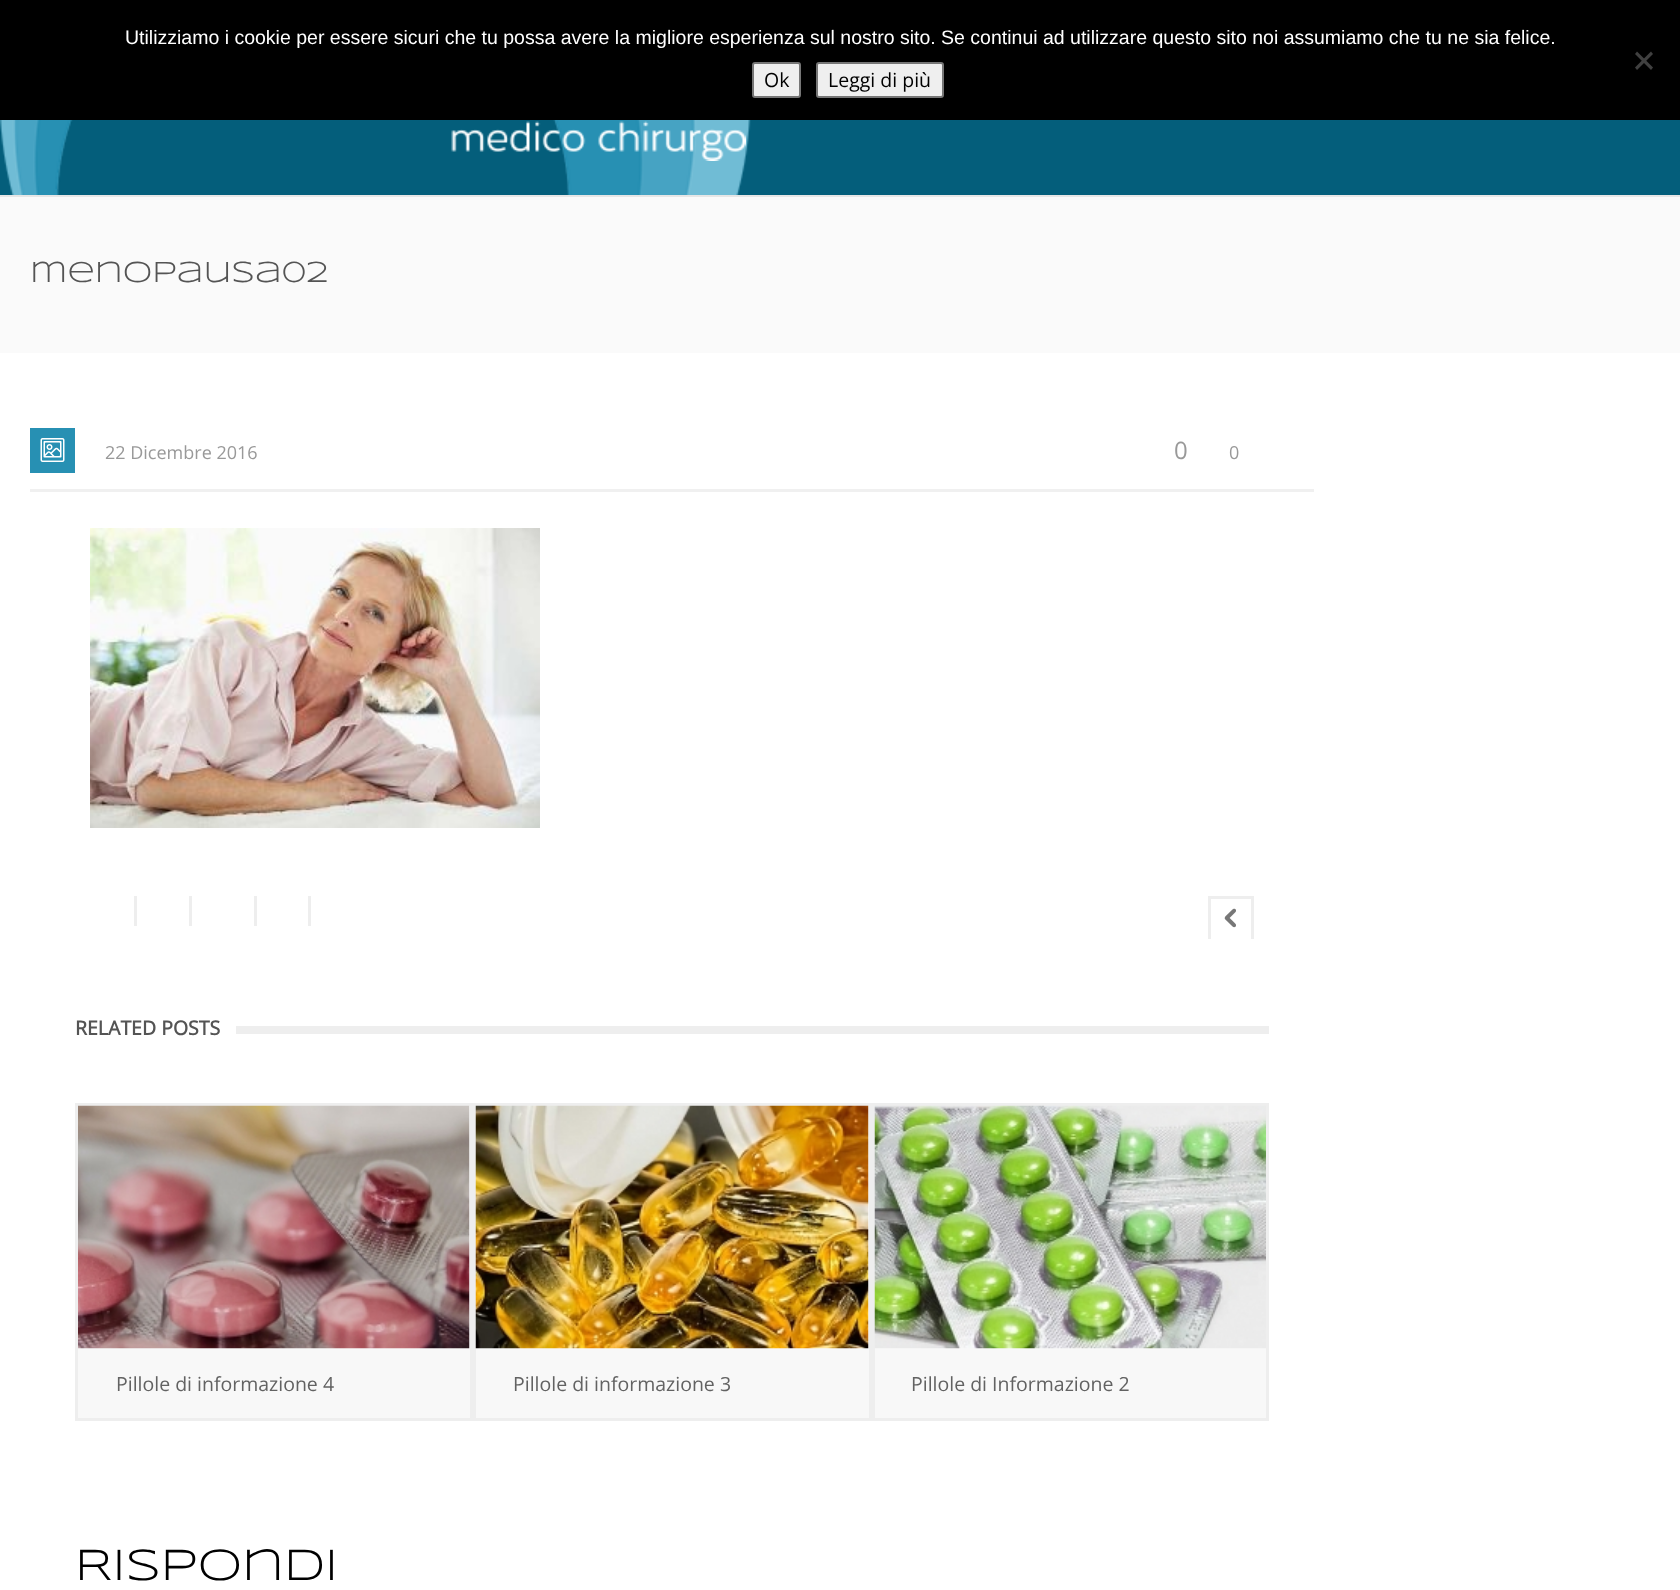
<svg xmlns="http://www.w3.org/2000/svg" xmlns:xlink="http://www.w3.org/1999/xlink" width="1680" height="1590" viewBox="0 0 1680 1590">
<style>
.cls-1{font:19.5px Liberation Sans;fill:#ffffff}
.cls-2{font:19.5px Open Sans;fill:#000000}
.cls-3{font:30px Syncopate;fill:#545454}
.cls-4{font:18px Open Sans;fill:#999999}
.cls-5{font:24px Open Sans;fill:#999999}
.cls-6{font:bold 19.5px Open Sans;fill:#545454}
.cls-7{font:19.5px Open Sans;fill:#626262}
.cls-8{font:45px Syncopate;fill:#000000}
</style>
<rect width="100%" height="100%" fill="#ffffff"/>
<rect fill="#000000" x="0" y="0" width="1680" height="120"/>
<path fill="#404040" d="M1651 51.5L1653 54L1637 70L1635 67.5Z"/>
<path fill="#404040" d="M1635 54L1637 51.5L1653 67.5L1651 70Z"/>
<rect fill="#efefef" stroke="#767676" stroke-width="2" x="753" y="63" width="47" height="34" rx="2"/>
<rect fill="#efefef" stroke="#767676" stroke-width="2" x="817" y="63" width="126" height="34" rx="2"/>
<rect fill="#045e7b" x="0" y="120" width="1680" height="75"/>
<image xlink:href="image0.png" x="0" y="120" width="751" height="75"/>
<rect fill="#e6e6e6" x="0" y="195" width="1680" height="2"/>
<image xlink:href="image1.png" x="451" y="121" width="295" height="40"/>
<rect fill="#fafafa" x="0" y="197" width="1680" height="156"/>
<rect fill="#2790b3" x="30" y="428" width="45" height="45"/>
<image xlink:href="image2.png" x="40" y="438" width="25" height="24"/>
<rect fill="#f0f0f0" x="30" y="489" width="1284" height="3"/>
<image xlink:href="image3.png" x="90" y="528" width="450" height="300"/>
<rect fill="#eeeeee" x="134" y="896" width="3" height="30"/>
<rect fill="#eeeeee" x="189" y="896" width="3" height="30"/>
<rect fill="#eeeeee" x="254" y="896" width="3" height="30"/>
<rect fill="#eeeeee" x="308" y="896" width="3" height="30"/>
<rect fill="#eeeeee" x="1208" y="896" width="46" height="3"/>
<rect fill="#eeeeee" x="1251" y="896" width="3" height="43"/>
<rect fill="#eeeeee" x="1208" y="896" width="3" height="43"/>
<image xlink:href="image4.png" x="1224" y="908" width="12" height="20"/>
<rect fill="#eeeeee" x="236" y="1026" width="1033" height="8"/>
<rect fill="#f8f8f8" stroke="#eeeeee" stroke-width="3" x="76.5" y="1104.5" width="395" height="315"/>
<image xlink:href="image5.png" x="78" y="1105" width="392" height="244"/>
<rect fill="#f8f8f8" stroke="#eeeeee" stroke-width="3" x="474.5" y="1104.5" width="396" height="315"/>
<image xlink:href="image6.png" x="475" y="1105" width="394" height="244"/>
<rect fill="#f8f8f8" x="875" y="1348" width="391" height="70"/>
<rect fill="none" stroke="#eeeeee" stroke-width="3" x="873.5" y="1104.5" width="394" height="315"/>
<image xlink:href="image7.png" x="874" y="1105" width="392" height="244"/>
<text class="cls-1" x="125" y="44">Utilizziamo i cookie per essere sicuri che tu possa avere la migliore esperienza sul nostro sito. Se continui ad utilizzare questo sito noi assumiamo che tu ne sia felice.</text>
<text class="cls-2" x="764" y="87">Ok</text>
<text class="cls-2" x="828" y="87">Leggi di più</text>
<text class="cls-3" x="30" y="282">menopausa02</text>
<text class="cls-4" x="105" y="459">22 Dicembre 2016</text>
<text class="cls-5" x="1174" y="459">0</text>
<text class="cls-4" x="1229" y="459">0</text>
<text class="cls-6" x="75" y="1035">RELATED POSTS</text>
<text class="cls-7" x="116" y="1391">Pillole di informazione 4</text>
<text class="cls-7" x="513" y="1391">Pillole di informazione 3</text>
<text class="cls-7" x="911" y="1391">Pillole di Informazione 2</text>
<text class="cls-8" x="75" y="1580">Rispondi</text>
</svg>
